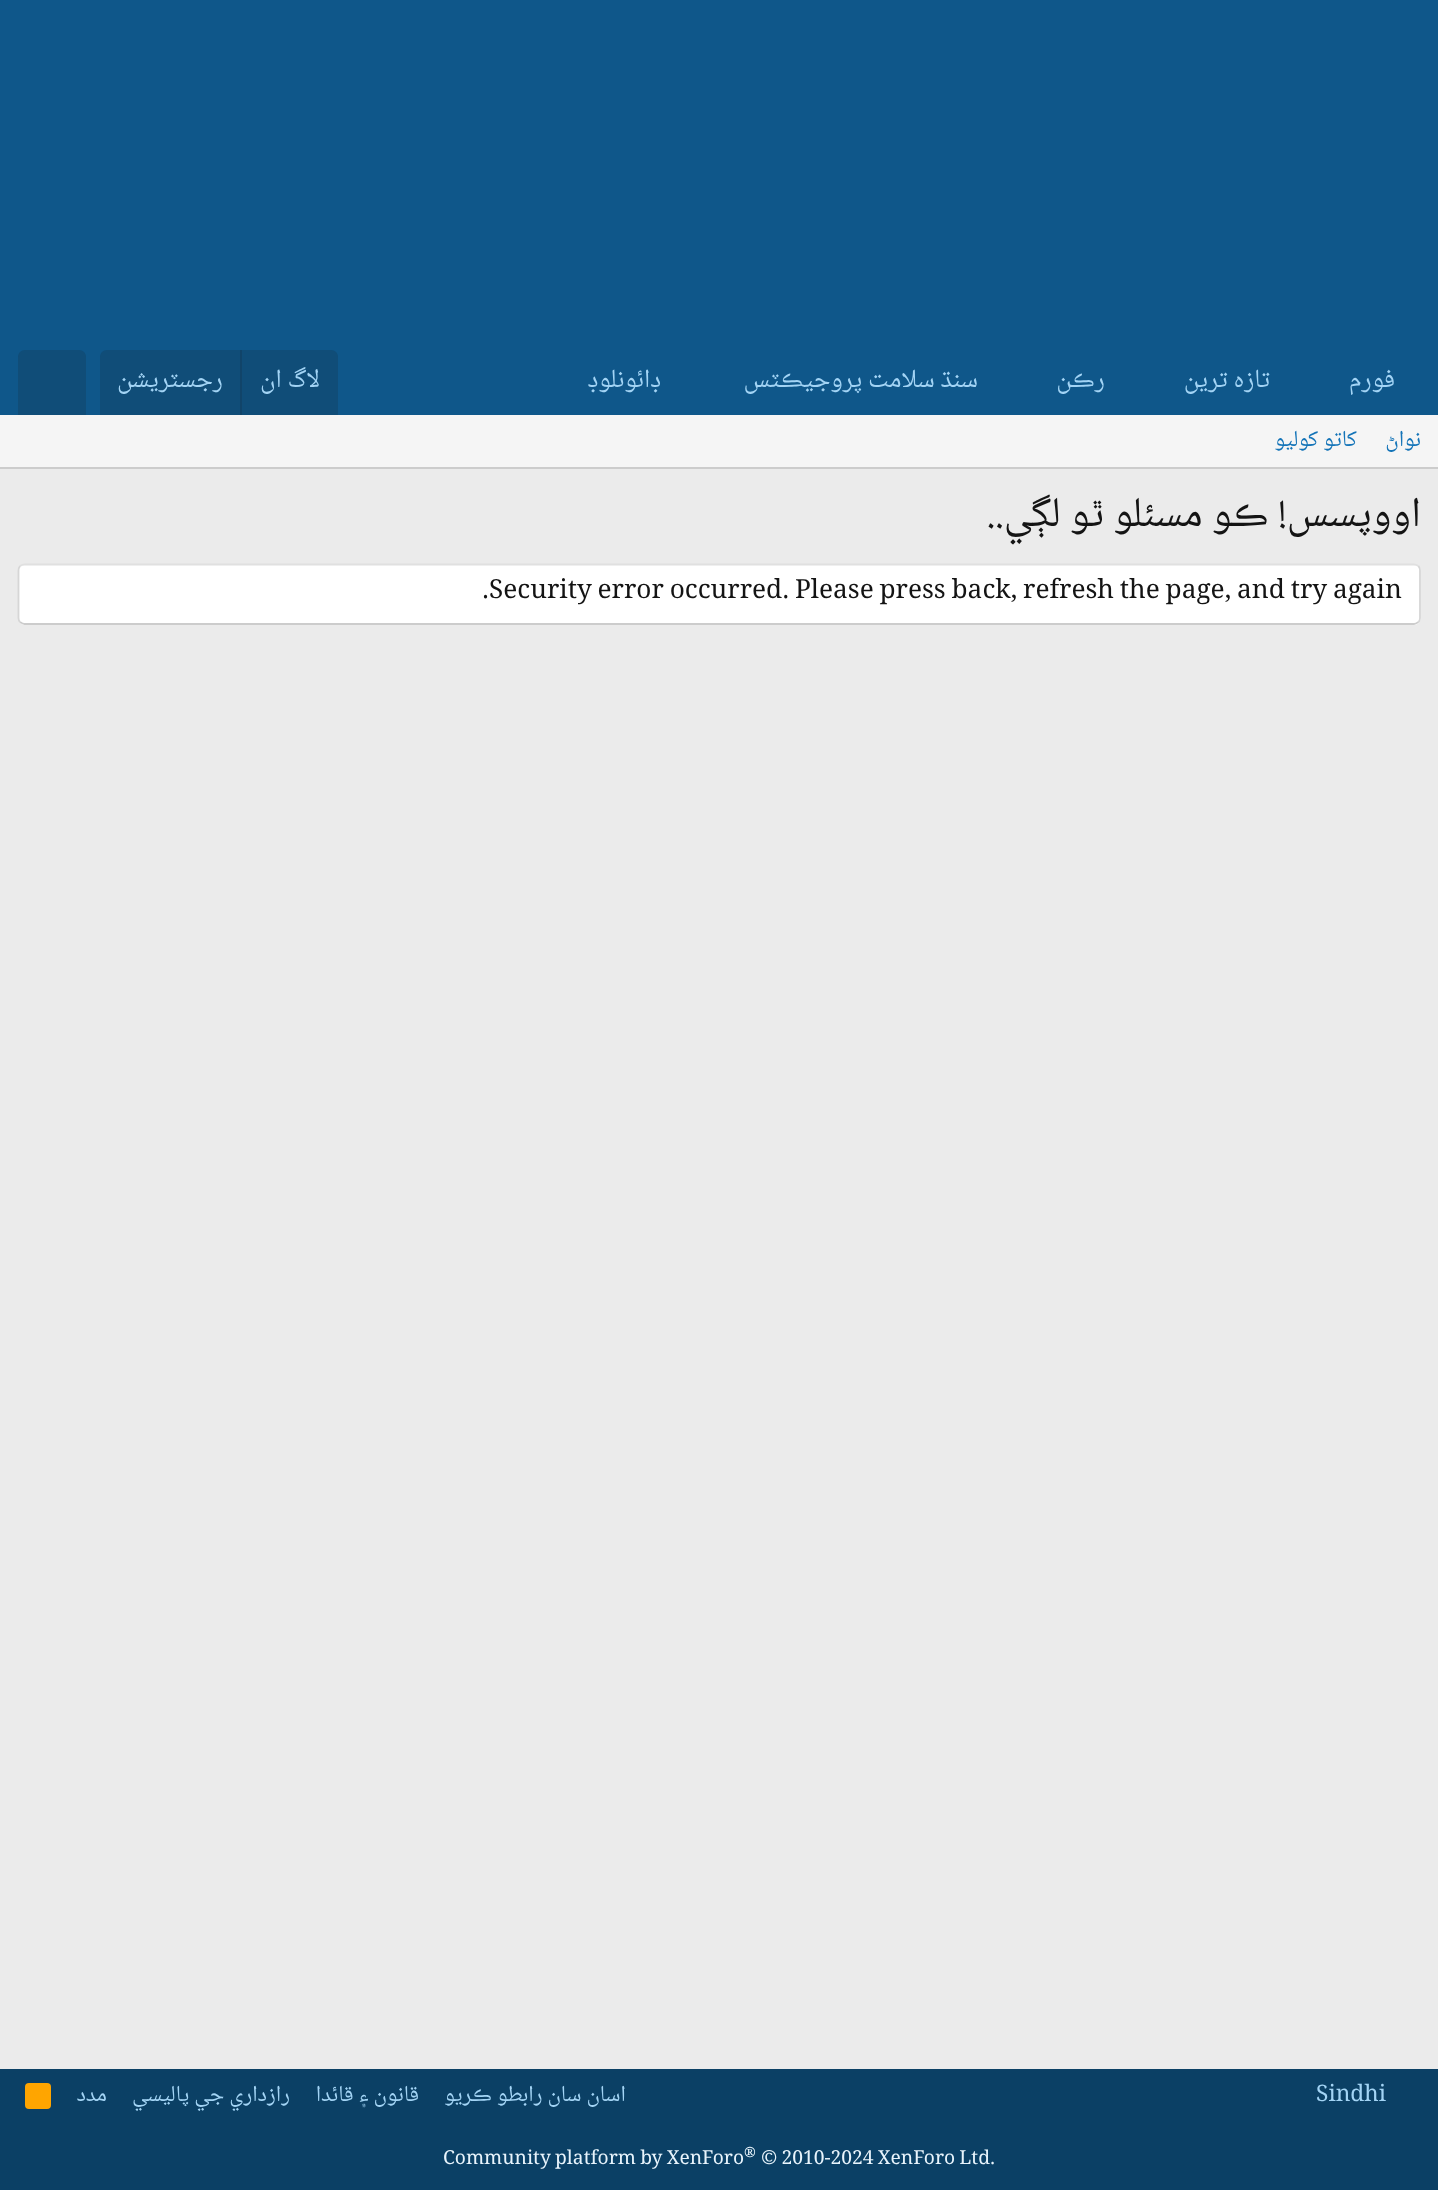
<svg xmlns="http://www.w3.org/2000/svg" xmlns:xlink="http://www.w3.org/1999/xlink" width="1438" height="2190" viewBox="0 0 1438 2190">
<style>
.cls-1{font:26.25px Noto Naskh Arabic;direction:rtl;fill:#a3d4f5}
.cls-2{font:22.75px Noto Naskh Arabic;direction:rtl;fill:#1474b8}
.cls-3{font:42px Noto Naskh Arabic;direction:rtl;fill:#141414}
.cls-4{font:26.25px Noto Naskh Arabic;fill:#141414}
.cls-5{font:22.75px Noto Naskh Arabic;fill:#a3d4f5}
.cls-6{font:22.75px Noto Naskh Arabic;direction:rtl;fill:#a3d4f5}
.cls-7{font:19.25px Noto Naskh Arabic;fill:#e8f4fc}
.cls-8{font:14px Noto Naskh Arabic;fill:#e8f4fc}
</style>
<rect width="100%" height="100%" fill="#ebebeb"/>
<rect fill="#0f578a" x="0" y="0" width="1438" height="415"/>
<path fill="#104d78" d="M107 350H331C335 350 338 353 338 357V415H100V357C100 353 103 350 107 350Z"/>
<rect fill="#114469" x="240" y="350" width="2" height="65"/>
<path fill="#104d78" d="M25 350H79C83 350 86 353 86 357V415H18V357C18 353 21 350 25 350Z"/>
<rect fill="#f5f5f5" x="0" y="415" width="1438" height="52"/>
<rect fill="#cccccc" x="0" y="467" width="1438" height="2"/>
<rect fill="#ffffff" x="18" y="564" width="1403" height="61" rx="7"/>
<path fill="none" stroke="#e0e0e0" stroke-width="1.8" d="M20 566C21.5 565 23 564.5 24.5 564.5H1414C1415.5 564.5 1417 565 1418.5 566"/>
<path fill="none" stroke="#d6d6d6" stroke-width="1.8" d="M1418.5 566C1419.5 567.5 1420 569 1420 570.5V618C1420 619.5 1419.5 621 1418.5 622"/>
<path fill="none" stroke="#cccccc" stroke-width="1.8" d="M1418.5 622C1417 623 1415.5 624 1414 624H24.5C23 624 21.5 623 20 622"/>
<path fill="none" stroke="#d6d6d6" stroke-width="1.8" d="M20 622C19 621 18.5 619.5 18.5 618V570.5C18.5 569 19 567.5 20 566"/>
<rect fill="#0b4065" x="0" y="2069" width="1438" height="121"/>
<rect fill="#ffa500" x="25" y="2083" width="26" height="26" rx="4"/>
<text class="cls-1" x="1395" y="387">فورم</text>
<text class="cls-1" x="1270" y="387">تازہ ترين</text>
<text class="cls-1" x="1105" y="387">رڪن</text>
<text class="cls-1" x="978" y="387">سنڌ سلامت پروجيڪٽس</text>
<text class="cls-1" x="661" y="387">ڊائونلوڊ</text>
<text class="cls-1" x="320" y="387">لاگ ان</text>
<text class="cls-1" x="223" y="387">رجسٽريشن</text>
<text class="cls-2" x="1421" y="446">نواڻ</text>
<text class="cls-2" x="1357" y="446">کاتو کوليو</text>
<text class="cls-3" x="1421" y="526">اووپسس! ڪو مسئلو ٿو لڳي..</text>
<text class="cls-4" x="489" y="598">Security error occurred. Please press back, refresh the page, and try again</text>
<text class="cls-4" x="482" y="598">.</text>
<text class="cls-5" x="1316" y="2101">Sindhi</text>
<text class="cls-6" x="626" y="2101">اسان سان رابطو ڪريو</text>
<text class="cls-6" x="419" y="2101">قانون ۽ قائدا</text>
<text class="cls-6" x="290" y="2101">رازداري جي پاليسي</text>
<text class="cls-6" x="107" y="2101">مدد</text>
<text class="cls-7" x="761" y="2164">© 2010-2024 XenForo Ltd.</text>
<text class="cls-8" x="744" y="2157">®</text>
<text class="cls-7" x="443" y="2164">Community platform by XenForo</text>
</svg>
